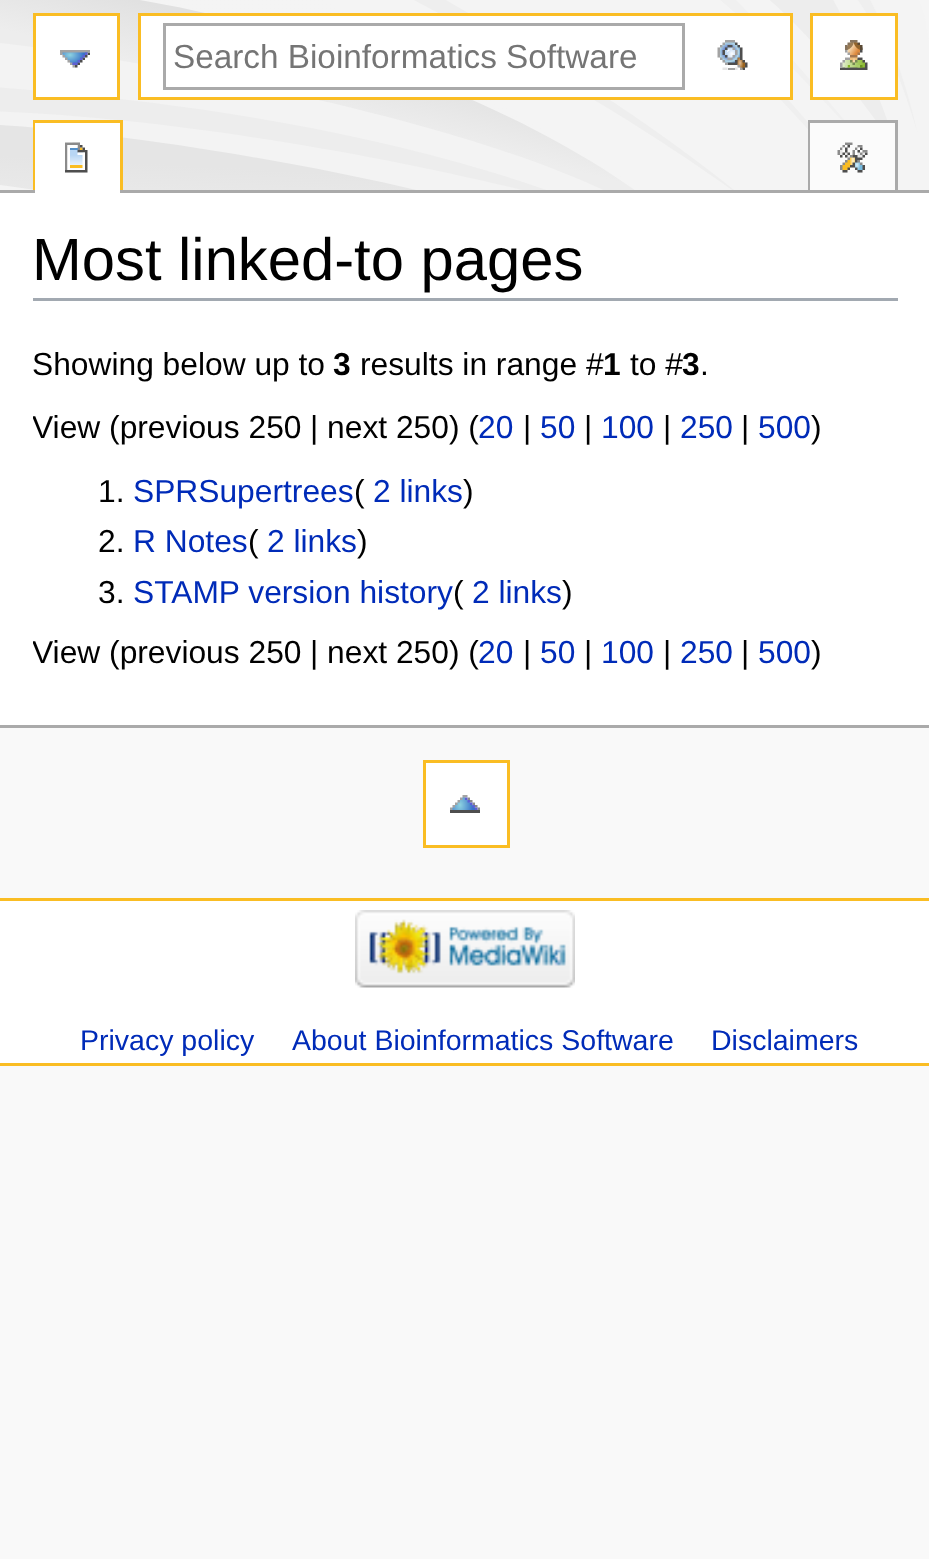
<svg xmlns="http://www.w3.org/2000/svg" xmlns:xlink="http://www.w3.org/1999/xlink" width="929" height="1559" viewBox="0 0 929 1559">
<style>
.cls-1{font:33.3px Liberation Sans;fill:#757575}
.cls-2{font:59.75px Liberation Sans;fill:#000000}
.cls-3{font:31.75px Liberation Sans;fill:#000000}
.cls-4{font:bold 31.75px Liberation Sans;fill:#000000}
.cls-5{font:31.75px Liberation Sans;fill:#002bb8}
.cls-6{font:28.5px Liberation Sans;fill:#002bb8}
</style>
<defs>
<clipPath id="clip1"><rect x="33" y="305" width="865" height="390"/></clipPath>
</defs>
<rect width="100%" height="100%" fill="#f9f9f9"/>
<image xlink:href="image0.png" x="0" y="0" width="929" height="190"/>
<rect fill="#ffffff" x="36" y="16" width="81" height="81"/>
<image xlink:href="image1.png" x="60" y="50" width="30" height="18"/>
<rect fill="none" stroke="#fabd23" stroke-width="3" x="34.5" y="14.5" width="84" height="84"/>
<rect fill="#ffffff" stroke="#fabd23" stroke-width="3" x="139.5" y="14.5" width="652" height="84"/>
<rect fill="none" stroke="#aaaaaa" stroke-width="3" x="164.5" y="24.5" width="519" height="64"/>
<image xlink:href="image2.png" x="717" y="40" width="31" height="30"/>
<rect fill="#ffffff" x="813" y="16" width="82" height="81"/>
<image xlink:href="image3.png" x="840" y="40" width="28" height="30"/>
<rect fill="none" stroke="#fabd23" stroke-width="3" x="811.5" y="14.5" width="85" height="84"/>
<rect fill="#fabd23" x="33" y="120" width="90" height="3"/>
<rect fill="#fabd23" x="120" y="120" width="3" height="73"/>
<rect fill="#fabd23" x="33" y="120" width="3" height="73"/>
<rect fill="#aaaaaa" x="808" y="120" width="90" height="3"/>
<rect fill="#aaaaaa" x="895" y="120" width="3" height="73"/>
<rect fill="#aaaaaa" x="808" y="120" width="3" height="73"/>
<rect fill="#aaaaaa" x="0" y="190" width="929" height="3"/>
<rect fill="#ffffff" x="35" y="123" width="85" height="70"/>
<image xlink:href="image4.png" x="65" y="142" width="23" height="31"/>
<rect fill="#fbfbfb" x="810" y="123" width="85" height="67"/>
<image xlink:href="image5.png" x="837" y="142" width="31" height="31"/>
<rect fill="#ffffff" x="426" y="763" width="81" height="82"/>
<image xlink:href="image6.png" x="450" y="795" width="30" height="18"/>
<rect fill="none" stroke="#fabd23" stroke-width="3" x="424.5" y="761.5" width="84" height="85"/>
<rect fill="#ffffff" x="0" y="193" width="929" height="532"/>
<rect fill="#aaaaaa" x="0" y="725" width="929" height="3"/>
<rect fill="#a2a9b1" x="33" y="298" width="865" height="3"/>
<rect fill="#ffffff" x="0" y="901" width="929" height="162"/>
<rect fill="#fabd23" x="0" y="898" width="929" height="3"/>
<rect fill="#fabd23" x="0" y="1063" width="929" height="3"/>
<image xlink:href="image7.png" x="355" y="910" width="220" height="78"/>
<text class="cls-1" x="173" y="68">Search Bioinformatics Software</text>
<text class="cls-2" x="32" y="280">Most linked-to pages</text>
<text class="cls-3" x="32" y="375">Showing below up to</text>
<text class="cls-4" x="333" y="375">3</text>
<text class="cls-3" x="360" y="375">results in range #</text>
<text class="cls-4" x="603" y="375">1</text>
<text class="cls-3" x="630" y="375">to #</text>
<text class="cls-4" x="682" y="375">3</text>
<text class="cls-3" x="700" y="375">.</text>
<g clip-path="url(#clip1)">
<text class="cls-3" x="32" y="438">View (previous 250</text>
</g>
<text class="cls-3" x="310" y="438">| next 250) (</text>
<text class="cls-5" x="478" y="438">20</text>
<text class="cls-3" x="523" y="438">|</text>
<text class="cls-5" x="540" y="438">50</text>
<text class="cls-3" x="584" y="438">|</text>
<text class="cls-5" x="601" y="438">100</text>
<text class="cls-3" x="663" y="438">|</text>
<text class="cls-5" x="680" y="438">250</text>
<text class="cls-3" x="741" y="438">|</text>
<text class="cls-5" x="758" y="438">500</text>
<text class="cls-3" x="811" y="438">)</text>
<text class="cls-3" x="98" y="502">1.</text>
<text class="cls-5" x="133" y="502">SPRSupertrees</text>
<text class="cls-3" x="354" y="502"> (</text>
<text class="cls-5" x="373" y="502">2 links</text>
<text class="cls-3" x="463" y="502">)</text>
<text class="cls-3" x="98" y="552">2.</text>
<text class="cls-5" x="133" y="552">R Notes</text>
<text class="cls-3" x="248" y="552"> (</text>
<text class="cls-5" x="267" y="552">2 links</text>
<text class="cls-3" x="357" y="552">)</text>
<text class="cls-3" x="98" y="603">3.</text>
<text class="cls-5" x="133" y="603">STAMP version history</text>
<text class="cls-3" x="453" y="603"> (</text>
<text class="cls-5" x="472" y="603">2 links</text>
<text class="cls-3" x="562" y="603">)</text>
<g clip-path="url(#clip1)">
<text class="cls-3" x="32" y="663">View (previous 250</text>
</g>
<text class="cls-3" x="310" y="663">| next 250) (</text>
<text class="cls-5" x="478" y="663">20</text>
<text class="cls-3" x="523" y="663">|</text>
<text class="cls-5" x="540" y="663">50</text>
<text class="cls-3" x="584" y="663">|</text>
<text class="cls-5" x="601" y="663">100</text>
<text class="cls-3" x="663" y="663">|</text>
<text class="cls-5" x="680" y="663">250</text>
<text class="cls-3" x="741" y="663">|</text>
<text class="cls-5" x="758" y="663">500</text>
<text class="cls-3" x="811" y="663">)</text>
<text class="cls-6" x="80" y="1050">Privacy policy</text>
<text class="cls-6" x="292" y="1050">About Bioinformatics Software</text>
<text class="cls-6" x="711" y="1050">Disclaimers</text>
</svg>
